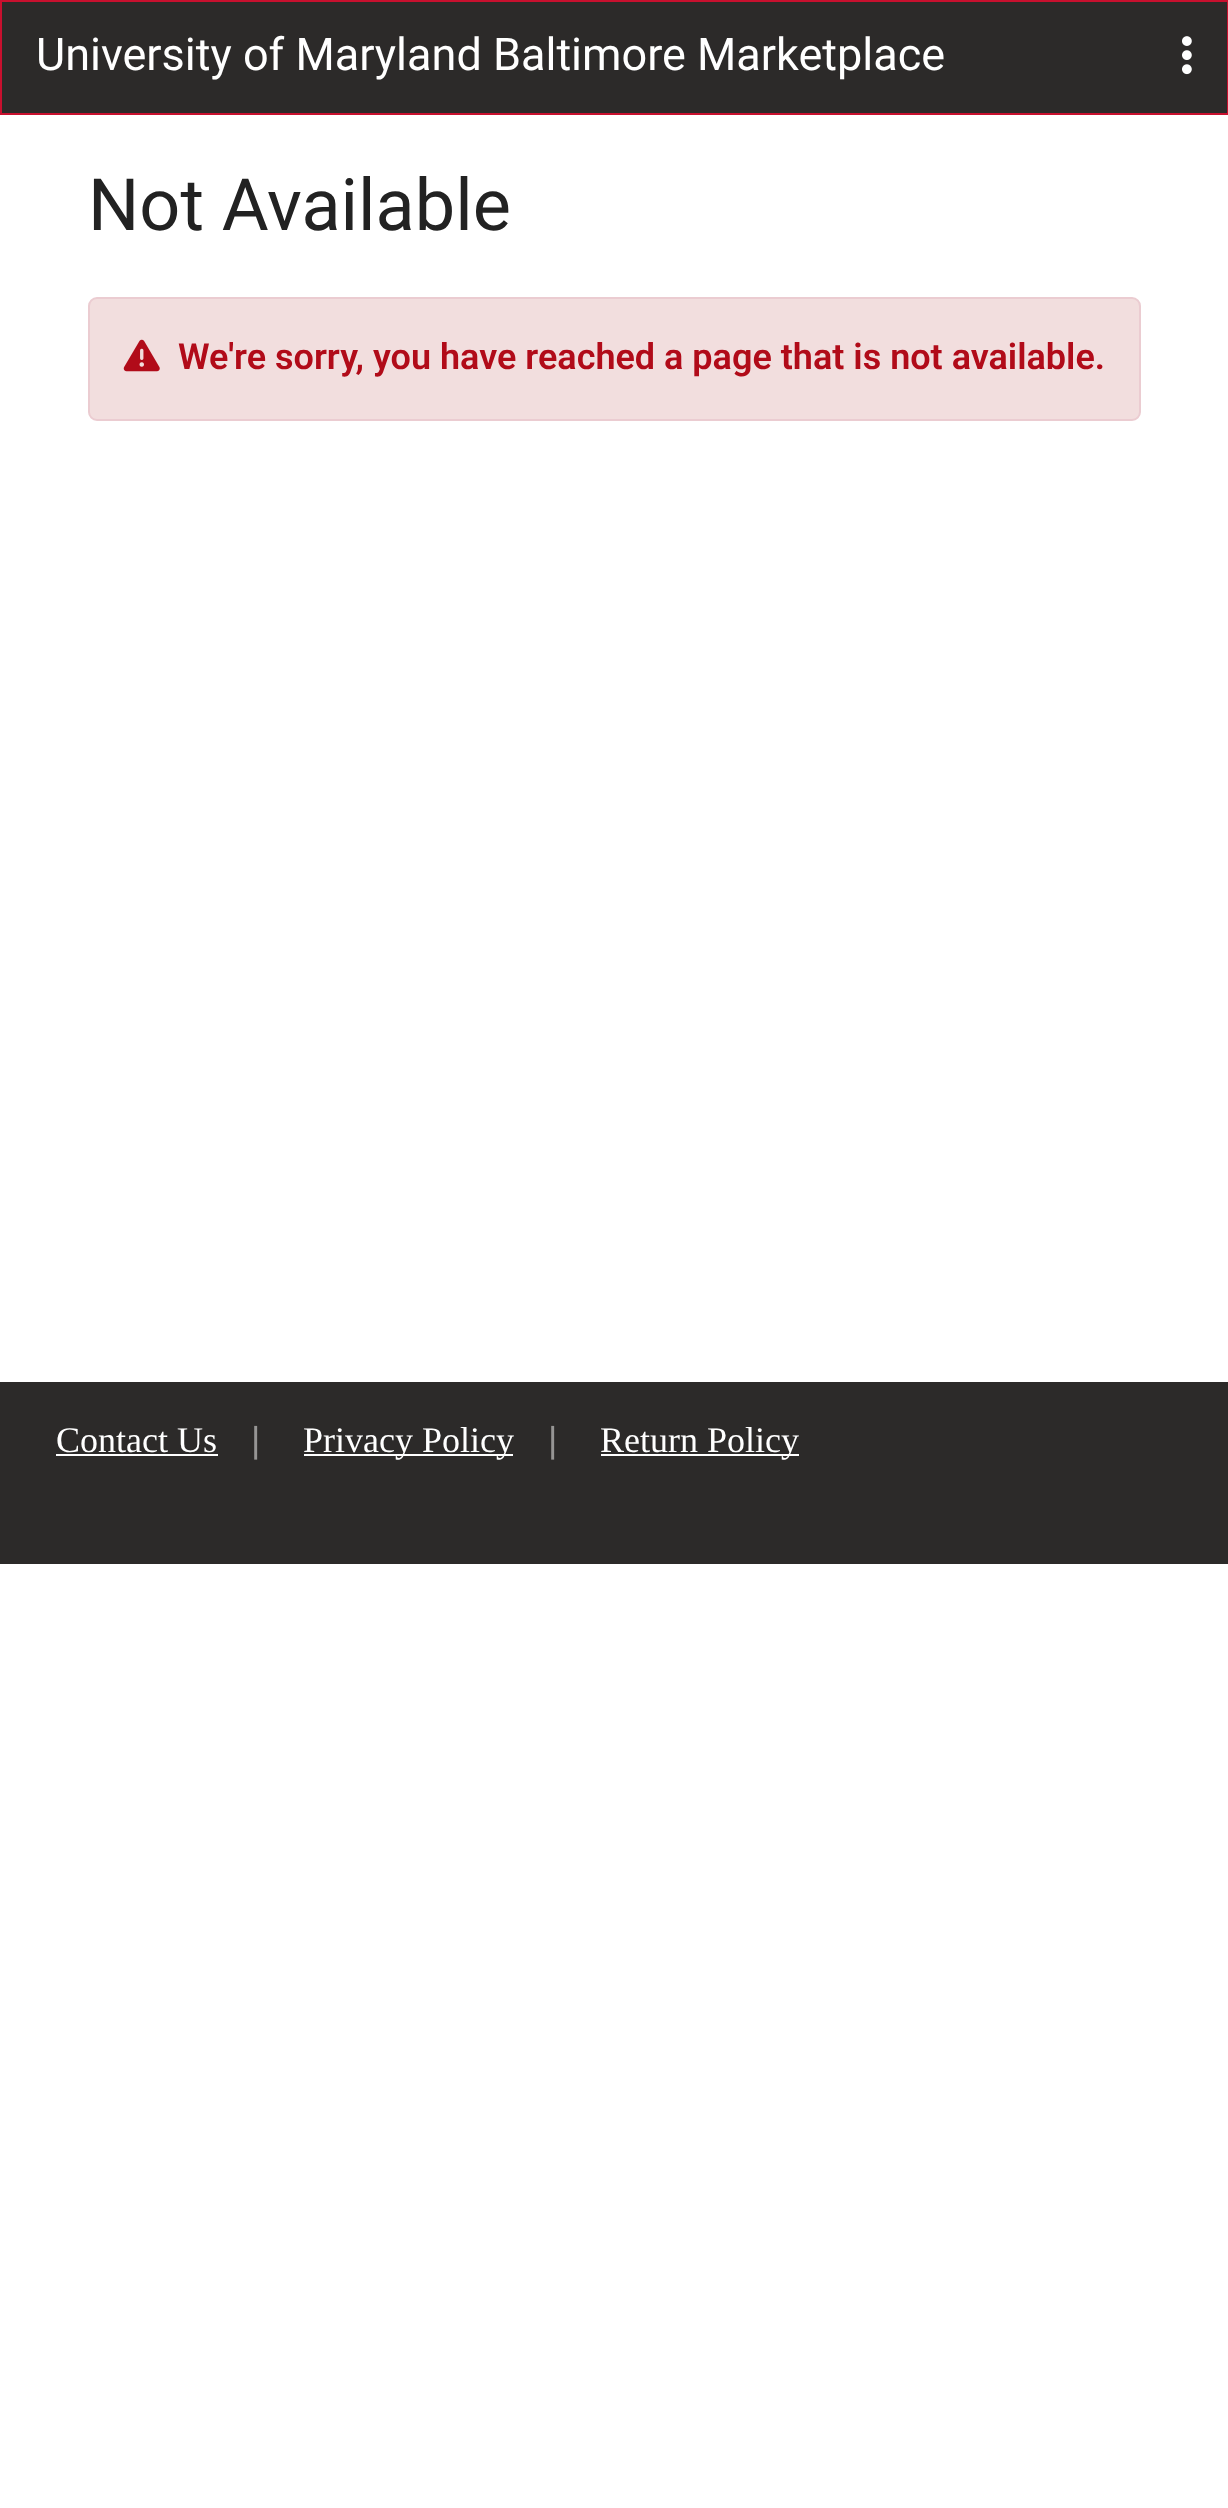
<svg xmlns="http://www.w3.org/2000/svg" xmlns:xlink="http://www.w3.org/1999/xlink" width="1228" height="2508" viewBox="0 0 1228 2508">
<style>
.cls-1{font:45px Roboto;fill:#ffffff}
.cls-2{font:72px Roboto;fill:#222222}
.cls-3{font:600 36px Roboto;fill:#b10b19}
.cls-4{font:36px Liberation Serif;fill:#ffffff}
.cls-5{font:36px Liberation Sans;fill:#969594}
</style>
<rect width="100%" height="100%" fill="#ffffff"/>
<rect fill="#2c2a29" stroke="#c8102e" stroke-width="2" x="1" y="1" width="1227" height="113"/>
<image xlink:href="image0.png" x="1182" y="36" width="10" height="39"/>
<rect fill="#f2dede" stroke="#ebccd1" stroke-width="2" x="89" y="298" width="1051" height="122" rx="8"/>
<image xlink:href="image1.png" x="123" y="339" width="37" height="33"/>
<rect fill="#2c2a29" x="0" y="1382" width="1228" height="182"/>
<rect fill="#ffffff" x="56" y="1454" width="162" height="2"/>
<rect fill="#ffffff" x="304" y="1454" width="209" height="2"/>
<rect fill="#ffffff" x="601" y="1454" width="198" height="2"/>
<text class="cls-1" x="36" y="70">University of Maryland Baltimore Marketplace</text>
<text class="cls-2" x="88" y="230">Not Available</text>
<text class="cls-3" x="178" y="369">We're sorry, you have reached a page that is not available.</text>
<text class="cls-4" x="56" y="1452">Contact Us</text>
<text class="cls-5" x="251" y="1452">|</text>
<text class="cls-4" x="303" y="1452">Privacy Policy</text>
<text class="cls-5" x="548" y="1452">|</text>
<text class="cls-4" x="600" y="1452">Return Policy</text>
</svg>
